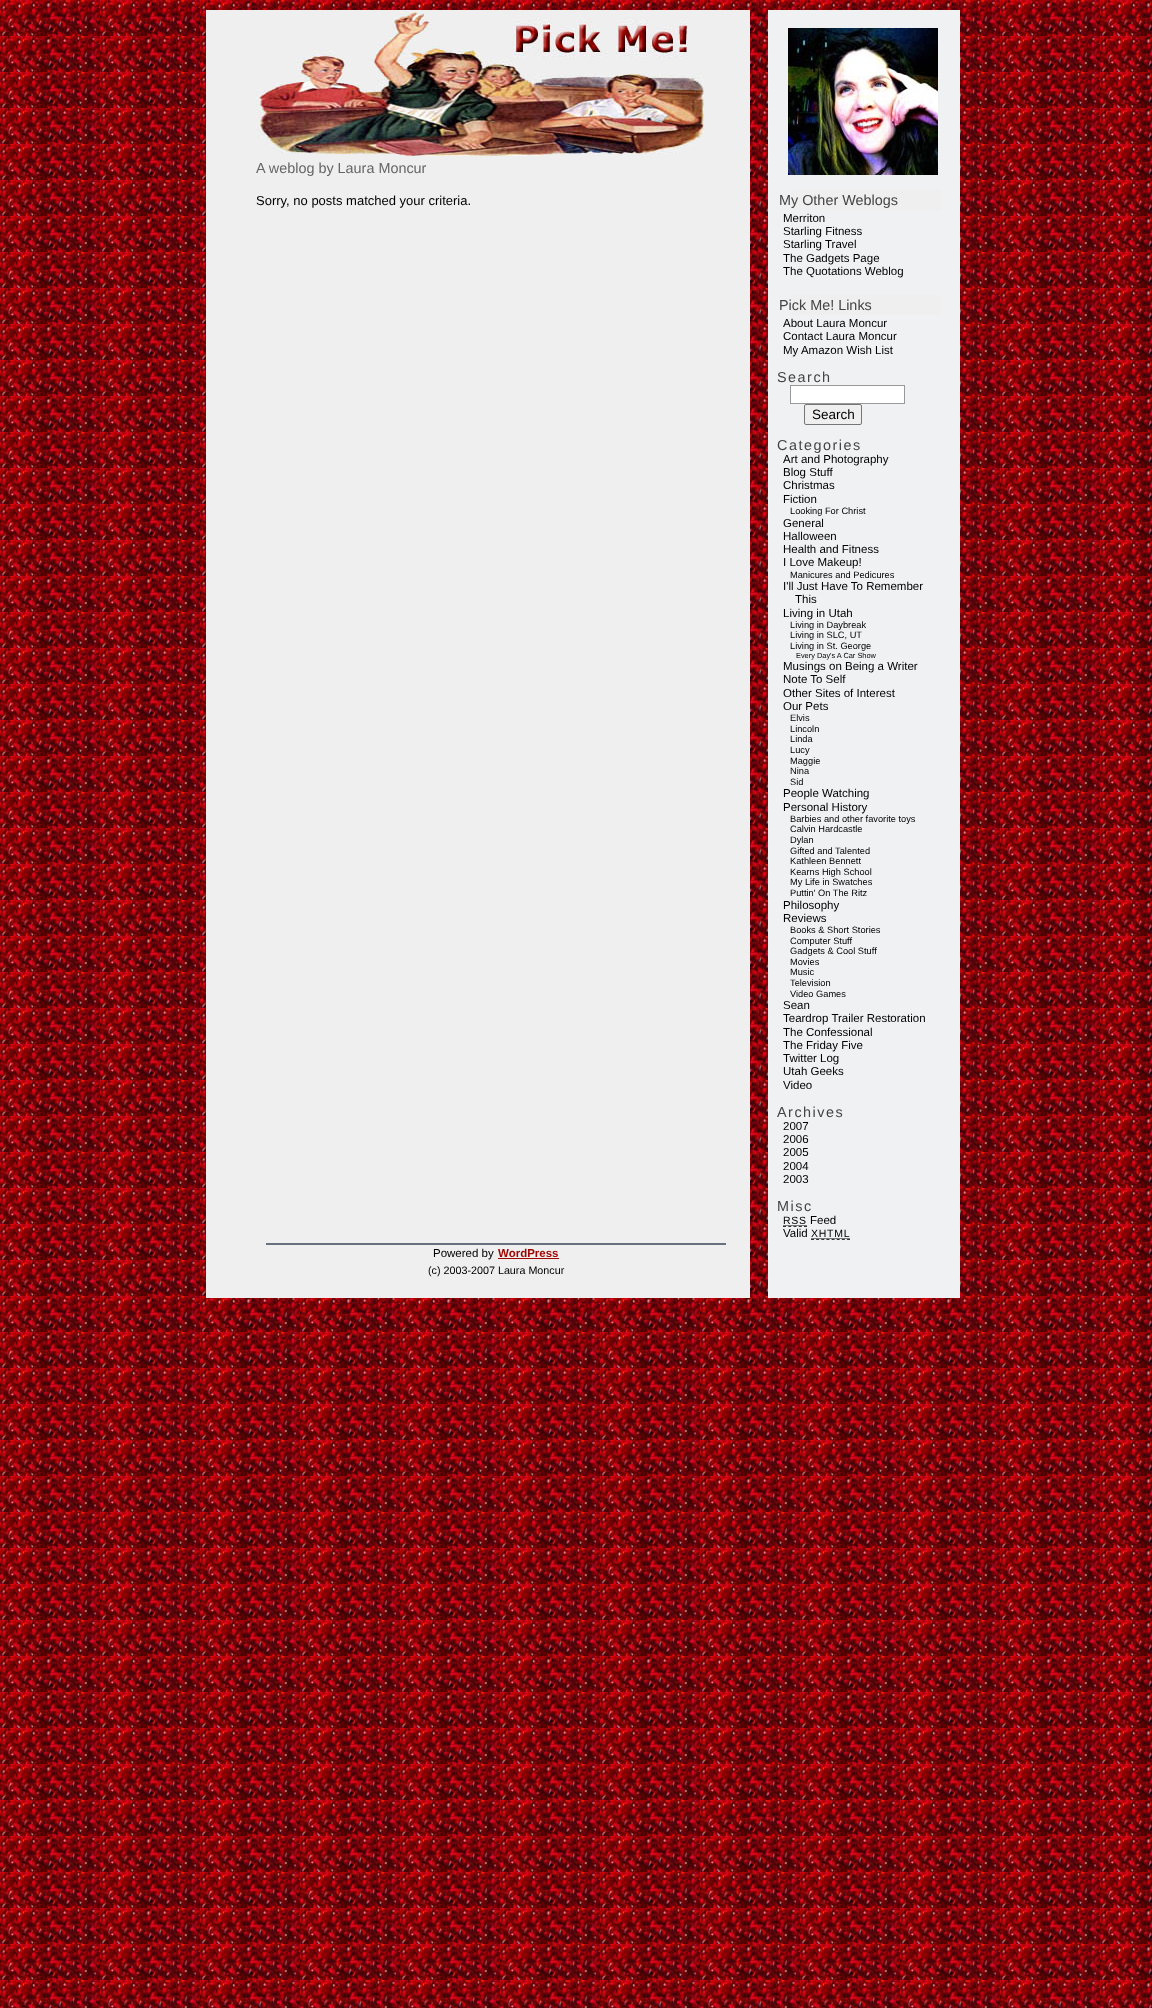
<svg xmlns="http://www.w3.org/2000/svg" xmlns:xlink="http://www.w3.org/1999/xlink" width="1152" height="2008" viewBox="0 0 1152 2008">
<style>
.cls-1{font:14.4px Liberation Sans;fill:#666666}
.cls-2{font:13px Liberation Sans;fill:#000000}
.cls-3{font:11.5px Liberation Sans;fill:#000000}
.cls-4{font:bold 11.5px Liberation Sans;fill:#9e0500}
.cls-5{font:10.75px Liberation Sans;fill:#000000}
.cls-6{font:14.4px Liberation Sans;fill:#444444}
.cls-7{font:14.4px Liberation Sans;letter-spacing:1.5px;fill:#444444}
.cls-8{font:13.5px Liberation Sans;fill:#000000}
.cls-9{font:9.25px Liberation Sans;fill:#000000}
.cls-10{font:7.4px Liberation Sans;fill:#000000}
.cls-11{font:10.5px Liberation Sans;letter-spacing:0.75px;fill:#000000}
</style>
<rect width="100%" height="100%" fill="#ffffff"/>
<image xlink:href="image0.png" x="0" y="0" width="1152" height="2008"/>
<image xlink:href="image1.png" x="206" y="10" width="754" height="1288"/>
<image xlink:href="image2.png" x="256" y="10" width="448" height="146"/>
<rect fill="#697080" x="266" y="1243" width="460" height="2"/>
<rect fill="#9e0500" x="498" y="1258" width="61" height="1"/>
<image xlink:href="image3.png" x="788" y="28" width="150" height="147"/>
<rect fill="#efefef" x="791" y="190" width="150" height="20"/>
<rect fill="#efefef" x="791" y="295" width="150" height="20"/>
<rect fill="#ffffff" stroke="#999999" x="790.5" y="385.5" width="114" height="18"/>
<rect fill="#efefef" stroke="#767676" x="804.5" y="404.5" width="57" height="20" rx="1.5"/>
<path fill="none" stroke="#333333" stroke-dasharray="3 2.25" d="M783 1226.5H807"/>
<path fill="none" stroke="#000000" stroke-dasharray="1 1" d="M783.5 1225.5H807"/>
<path fill="none" stroke="#333333" stroke-dasharray="3 2.14" d="M811 1239.5H850"/>
<path fill="none" stroke="#000000" stroke-dasharray="1 1" d="M811.5 1238.5H850"/>
<text class="cls-1" x="256" y="173">A weblog by Laura Moncur</text>
<text class="cls-2" x="256" y="205">Sorry, no posts matched your criteria.</text>
<text class="cls-3" x="433" y="1257">Powered by</text>
<text class="cls-4" x="498" y="1257">WordPress</text>
<text class="cls-5" x="428" y="1274">(c) 2003-2007 Laura Moncur</text>
<text class="cls-6" x="779" y="205">My Other Weblogs</text>
<text class="cls-3"><tspan x="783" y="222">Merriton</tspan><tspan x="783" y="235">Starling Fitness</tspan><tspan x="783" y="248">Starling Travel</tspan><tspan x="783" y="262">The Gadgets Page</tspan><tspan x="783" y="275">The Quotations Weblog</tspan></text>
<text class="cls-6" x="779" y="310">Pick Me! Links</text>
<text class="cls-3"><tspan x="783" y="327">About Laura Moncur</tspan><tspan x="783" y="340">Contact Laura Moncur</tspan><tspan x="783" y="354">My Amazon Wish List</tspan></text>
<text class="cls-7" x="777" y="382">Search</text>
<text class="cls-8" x="812" y="419">Search</text>
<text class="cls-7" x="777" y="450">Categories</text>
<text class="cls-3"><tspan x="783" y="463">Art and Photography</tspan><tspan x="783" y="476">Blog Stuff</tspan><tspan x="783" y="489">Christmas</tspan><tspan x="783" y="503">Fiction</tspan></text>
<text class="cls-9" x="790" y="514">Looking For Christ</text>
<text class="cls-3"><tspan x="783" y="527">General</tspan><tspan x="783" y="540">Halloween</tspan><tspan x="783" y="553">Health and Fitness</tspan><tspan x="783" y="566">I Love Makeup!</tspan></text>
<text class="cls-9" x="790" y="578">Manicures and Pedicures</text>
<text class="cls-3" x="783" y="590">I'll Just Have To Remember</text>
<text class="cls-3" x="795" y="603">This</text>
<text class="cls-3" x="783" y="617">Living in Utah</text>
<text class="cls-9"><tspan x="790" y="628">Living in Daybreak</tspan><tspan x="790" y="638">Living in SLC, UT</tspan><tspan x="790" y="649">Living in St. George</tspan></text>
<text class="cls-10" x="796" y="658">Every Day's A Car Show</text>
<text class="cls-3"><tspan x="783" y="670">Musings on Being a Writer</tspan><tspan x="783" y="683">Note To Self</tspan><tspan x="783" y="697">Other Sites of Interest</tspan><tspan x="783" y="710">Our Pets</tspan></text>
<text class="cls-9"><tspan x="790" y="721">Elvis</tspan><tspan x="790" y="732">Lincoln</tspan><tspan x="790" y="742">Linda</tspan><tspan x="790" y="753">Lucy</tspan><tspan x="790" y="764">Maggie</tspan><tspan x="790" y="774">Nina</tspan><tspan x="790" y="785">Sid</tspan></text>
<text class="cls-3"><tspan x="783" y="797">People Watching</tspan><tspan x="783" y="811">Personal History</tspan></text>
<text class="cls-9"><tspan x="790" y="822">Barbies and other favorite toys</tspan><tspan x="790" y="832">Calvin Hardcastle</tspan><tspan x="790" y="843">Dylan</tspan><tspan x="790" y="854">Gifted and Talented</tspan><tspan x="790" y="864">Kathleen Bennett</tspan><tspan x="790" y="875">Kearns High School</tspan><tspan x="790" y="885">My Life in Swatches</tspan><tspan x="790" y="896">Puttin' On The Ritz</tspan></text>
<text class="cls-3"><tspan x="783" y="909">Philosophy</tspan><tspan x="783" y="922">Reviews</tspan></text>
<text class="cls-9"><tspan x="790" y="933">Books &amp; Short Stories</tspan><tspan x="790" y="944">Computer Stuff</tspan><tspan x="790" y="954">Gadgets &amp; Cool Stuff</tspan><tspan x="790" y="965">Movies</tspan><tspan x="790" y="975">Music</tspan><tspan x="790" y="986">Television</tspan><tspan x="790" y="997">Video Games</tspan></text>
<text class="cls-3"><tspan x="783" y="1009">Sean</tspan><tspan x="783" y="1022">Teardrop Trailer Restoration</tspan><tspan x="783" y="1036">The Confessional</tspan><tspan x="783" y="1049">The Friday Five</tspan><tspan x="783" y="1062">Twitter Log</tspan><tspan x="783" y="1075">Utah Geeks</tspan><tspan x="783" y="1089">Video</tspan></text>
<text class="cls-7" x="777" y="1117">Archives</text>
<text class="cls-3"><tspan x="783" y="1130">2007</tspan><tspan x="783" y="1143">2006</tspan><tspan x="783" y="1156">2005</tspan><tspan x="783" y="1170">2004</tspan><tspan x="783" y="1183">2003</tspan></text>
<text class="cls-7" x="777" y="1211">Misc</text>
<text class="cls-11" x="783" y="1224">RSS</text>
<text class="cls-3" x="810" y="1224">Feed</text>
<text class="cls-3" x="783" y="1237">Valid</text>
<text class="cls-11" x="811" y="1237">XHTML</text>
</svg>
